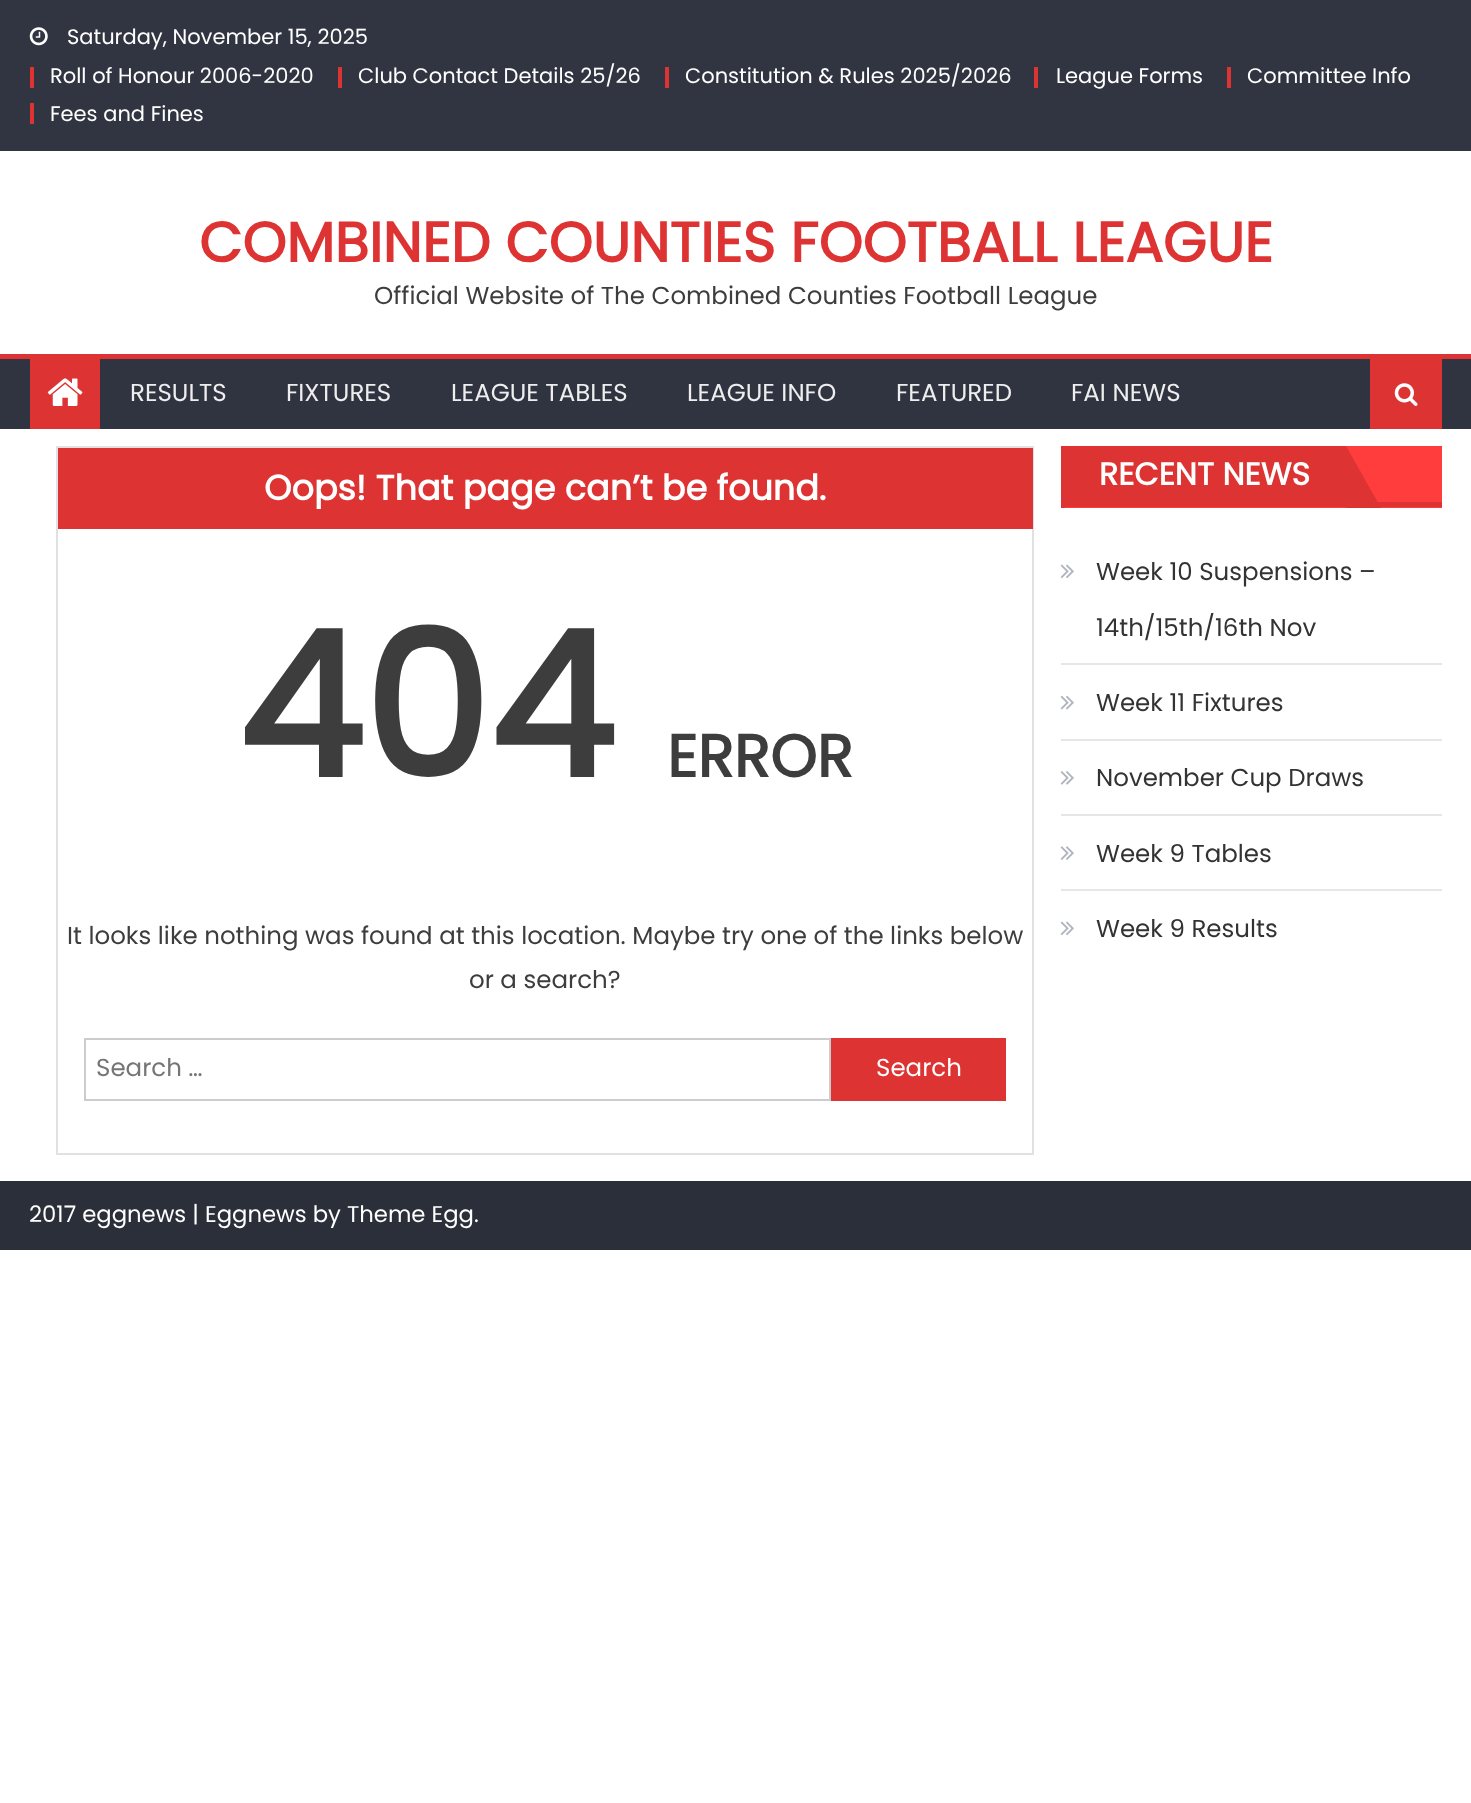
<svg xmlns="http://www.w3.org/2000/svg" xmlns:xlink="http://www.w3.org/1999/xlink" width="1471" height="1803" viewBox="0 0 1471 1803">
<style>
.cls-1{font:21px Poppins;fill:#ffffff}
.cls-2{font:bold 56px Poppins;fill:#dd3333}
.cls-3{font:24.5px Poppins;fill:#3d3d3d}
.cls-4{font:24.5px Poppins;fill:#eeeeee}
.cls-5{font:bold 35px Poppins;fill:#ffffff}
.cls-6{font:bold 200px Poppins;fill:#3d3d3d}
.cls-7{font:bold 59.5px Poppins;fill:#3d3d3d}
.cls-8{font:24.5px Poppins;fill:#757575}
.cls-9{font:24.5px Poppins;fill:#ffffff}
.cls-10{font:bold 31.5px Poppins;fill:#ffffff}
.cls-11{font:24.5px Poppins;fill:#333333}
.cls-12{font:22.75px Poppins;fill:#ffffff}
</style>
<rect width="100%" height="100%" fill="#ffffff"/>
<rect fill="#313541" x="0" y="0" width="1471" height="151"/>
<image xlink:href="image0.png" x="29" y="27" width="19" height="19"/>
<rect fill="#dd3333" x="30" y="67" width="4" height="21"/>
<rect fill="#dd3333" x="338" y="67" width="4" height="21"/>
<rect fill="#dd3333" x="665" y="67" width="4" height="21"/>
<rect fill="#dd3333" x="1034" y="67" width="4" height="21"/>
<rect fill="#dd3333" x="1227" y="67" width="4" height="21"/>
<rect fill="#dd3333" x="30" y="103" width="4" height="21"/>
<rect fill="#303440" x="0" y="359" width="1471" height="70"/>
<rect fill="#dd3333" x="0" y="354" width="1471" height="5"/>
<rect fill="#dd3333" x="30" y="359" width="70" height="70"/>
<image xlink:href="image1.png" x="47" y="378" width="36" height="28"/>
<rect fill="#dd3333" x="1370" y="359" width="72" height="70"/>
<image xlink:href="image2.png" x="1394" y="383" width="24" height="23"/>
<rect fill="none" stroke="#e1e1e1" stroke-width="2" x="57" y="447" width="976" height="707"/>
<rect fill="#dd3333" x="58" y="448" width="975" height="81"/>
<rect fill="none" stroke="#cccccc" stroke-width="2" x="85" y="1039" width="745" height="61"/>
<rect fill="#dd3333" x="831" y="1038" width="175" height="63"/>
<rect fill="#ff3d3d" x="1065" y="446" width="377" height="62"/>
<rect fill="#dd3333" x="1061" y="502" width="381" height="5"/>
<rect fill="#dd3333" x="1061" y="446" width="4" height="62"/>
<rect fill="#dd3333" x="1065" y="446" width="281" height="56"/>
<path fill="#dd3333" d="M1381 508H1346V446Z"/>
<rect fill="#e6e6e6" x="1061" y="663" width="381" height="2"/>
<image xlink:href="image3.png" x="1060" y="564" width="14" height="15"/>
<rect fill="#e6e6e6" x="1061" y="739" width="381" height="2"/>
<image xlink:href="image4.png" x="1060" y="695" width="14" height="15"/>
<rect fill="#e6e6e6" x="1061" y="814" width="381" height="2"/>
<image xlink:href="image5.png" x="1060" y="771" width="14" height="14"/>
<rect fill="#e6e6e6" x="1061" y="889" width="381" height="2"/>
<image xlink:href="image6.png" x="1060" y="846" width="14" height="14"/>
<image xlink:href="image3.png" x="1060" y="921" width="14" height="15"/>
<rect fill="#2b2f3a" x="0" y="1181" width="1471" height="69"/>
<text class="cls-1" x="67" y="44">Saturday, November 15, 2025</text>
<text class="cls-1" x="50" y="83">Roll of Honour 2006-2020</text>
<text class="cls-1" x="358" y="83">Club Contact Details 25/26</text>
<text class="cls-1" x="685" y="83">Constitution &amp; Rules 2025/2026</text>
<text class="cls-1" x="1056" y="83">League Forms</text>
<text class="cls-1" x="1247" y="83">Committee Info</text>
<text class="cls-1" x="50" y="121">Fees and Fines</text>
<text class="cls-2" x="199" y="262">COMBINED COUNTIES FOOTBALL LEAGUE</text>
<text class="cls-3" x="374" y="304">Official Website of The Combined Counties Football League</text>
<text class="cls-4" x="130" y="401">RESULTS</text>
<text class="cls-4" x="286" y="401">FIXTURES</text>
<text class="cls-4" x="451" y="401">LEAGUE TABLES</text>
<text class="cls-4" x="687" y="401">LEAGUE INFO</text>
<text class="cls-4" x="896" y="401">FEATURED</text>
<text class="cls-4" x="1071" y="401">FAI NEWS</text>
<text class="cls-5" x="264" y="500">Oops! That page can’t be found.</text>
<text class="cls-6" x="237" y="777">404</text>
<text class="cls-7" x="667" y="777">ERROR</text>
<text class="cls-3" x="67" y="944">It looks like nothing was found at this location. Maybe try one of the links below</text>
<text class="cls-3" x="469" y="988">or a search?</text>
<text class="cls-8" x="96" y="1076">Search …</text>
<text class="cls-9" x="876" y="1076">Search</text>
<text class="cls-10" x="1099" y="485">RECENT NEWS</text>
<text class="cls-11" x="1096" y="580">Week 10 Suspensions –</text>
<text class="cls-11" x="1096" y="636">14th/15th/16th Nov</text>
<text class="cls-11" x="1096" y="711">Week 11 Fixtures</text>
<text class="cls-11" x="1096" y="786">November Cup Draws</text>
<text class="cls-11" x="1096" y="862">Week 9 Tables</text>
<text class="cls-11" x="1096" y="937">Week 9 Results</text>
<text class="cls-12" x="29" y="1222">2017 eggnews | Eggnews by Theme Egg.</text>
</svg>
